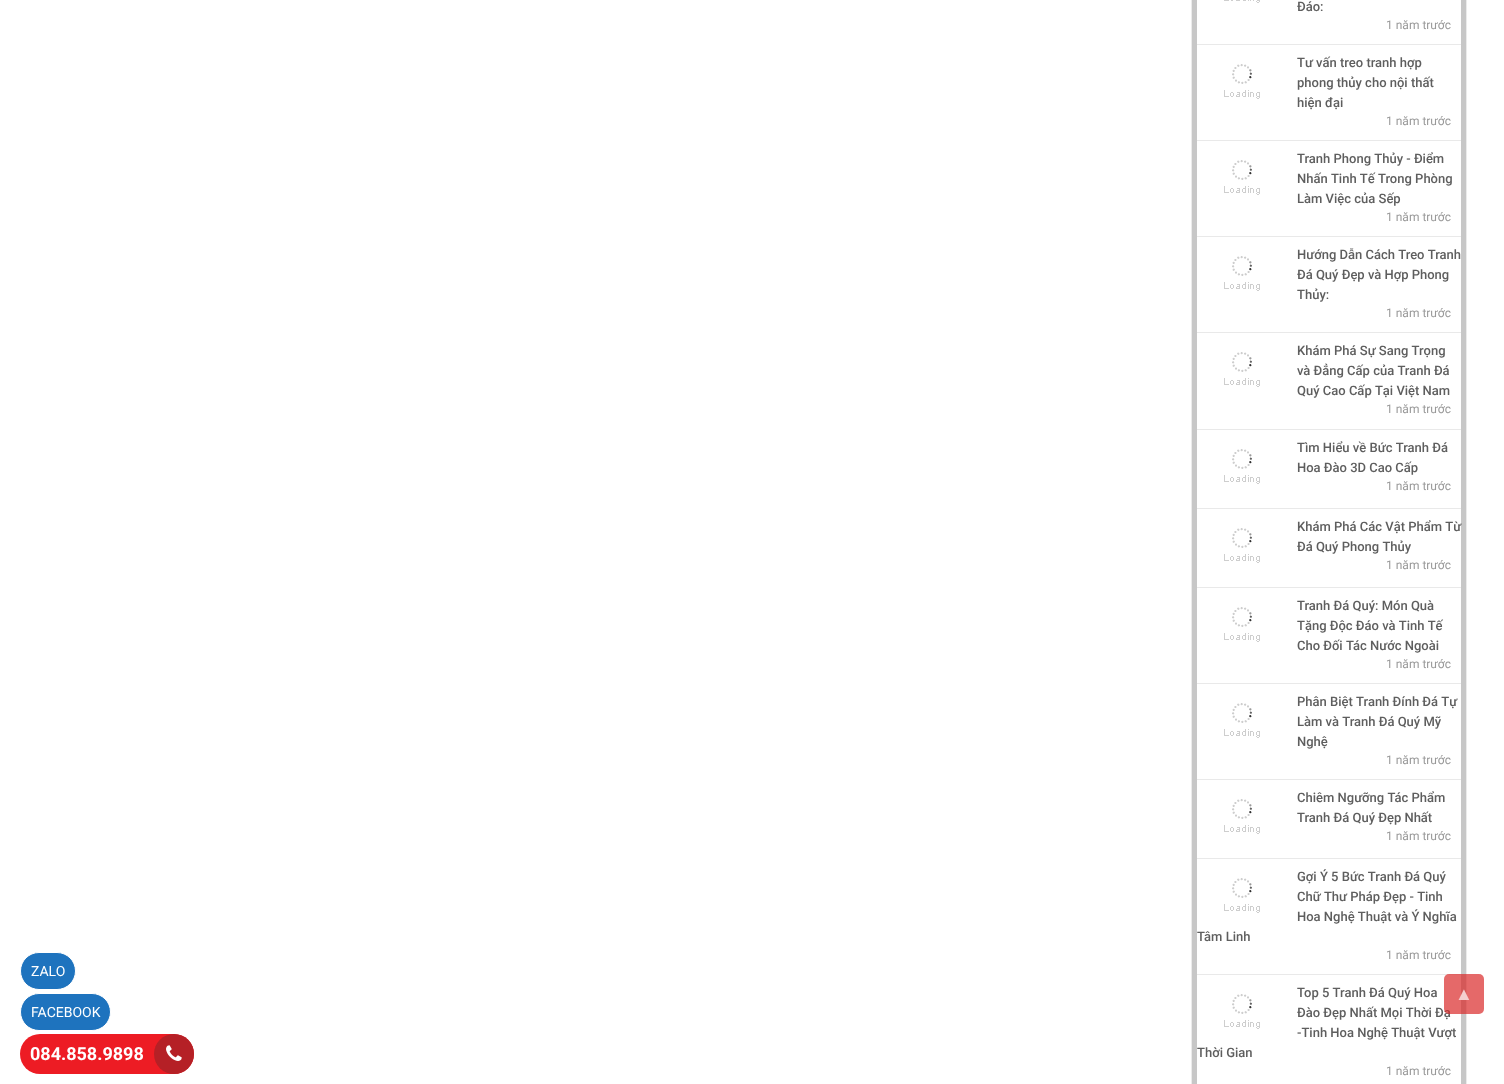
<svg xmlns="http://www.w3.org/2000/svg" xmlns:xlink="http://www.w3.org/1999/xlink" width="1504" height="1084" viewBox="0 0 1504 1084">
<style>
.cls-1{font:14px Roboto;fill:#ffffff}
.cls-2{font:500 13px Roboto;fill:#5e5e5e}
.cls-3{font:12px Roboto;fill:#999999}
.cls-4{font:18px Liberation Sans;fill:#f4cfcf}
.cls-5{font:bold 18px Roboto;fill:#ffffff}
</style>
<rect width="100%" height="100%" fill="#ffffff"/>
<rect fill="#1e73be" stroke="#ffffff" x="20.5" y="952.5" width="55" height="37" rx="18.5"/>
<rect fill="#c7c7c7" stroke="#ebebeb" x="1191.5" y="-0.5" width="275" height="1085"/>
<rect fill="#ffffff" x="1197" y="0" width="264" height="44"/>
<rect fill="#e9e9e9" x="1197" y="44" width="264" height="1"/>
<image xlink:href="image0.png" x="1224" y="0" width="36" height="3"/>
<rect fill="#ffffff" x="1197" y="45" width="264" height="95"/>
<rect fill="#e9e9e9" x="1197" y="140" width="264" height="1"/>
<image xlink:href="image1.png" x="1224" y="64" width="36" height="35"/>
<rect fill="#ffffff" x="1197" y="141" width="264" height="95"/>
<rect fill="#e9e9e9" x="1197" y="236" width="264" height="1"/>
<image xlink:href="image1.png" x="1224" y="160" width="36" height="35"/>
<rect fill="#ffffff" x="1197" y="237" width="264" height="95"/>
<rect fill="#e9e9e9" x="1197" y="332" width="264" height="1"/>
<image xlink:href="image1.png" x="1224" y="256" width="36" height="35"/>
<rect fill="#ffffff" x="1197" y="333" width="264" height="96"/>
<rect fill="#e9e9e9" x="1197" y="429" width="264" height="1"/>
<image xlink:href="image1.png" x="1224" y="352" width="36" height="35"/>
<rect fill="#ffffff" x="1197" y="430" width="264" height="78"/>
<rect fill="#e9e9e9" x="1197" y="508" width="264" height="1"/>
<image xlink:href="image1.png" x="1224" y="449" width="36" height="35"/>
<rect fill="#ffffff" x="1197" y="509" width="264" height="78"/>
<rect fill="#e9e9e9" x="1197" y="587" width="264" height="1"/>
<image xlink:href="image1.png" x="1224" y="528" width="36" height="35"/>
<rect fill="#ffffff" x="1197" y="588" width="264" height="95"/>
<rect fill="#e9e9e9" x="1197" y="683" width="264" height="1"/>
<image xlink:href="image1.png" x="1224" y="607" width="36" height="35"/>
<rect fill="#ffffff" x="1197" y="684" width="264" height="95"/>
<rect fill="#e9e9e9" x="1197" y="779" width="264" height="1"/>
<image xlink:href="image1.png" x="1224" y="703" width="36" height="35"/>
<rect fill="#ffffff" x="1197" y="780" width="264" height="78"/>
<rect fill="#e9e9e9" x="1197" y="858" width="264" height="1"/>
<image xlink:href="image1.png" x="1224" y="799" width="36" height="35"/>
<rect fill="#ffffff" x="1197" y="859" width="264" height="115"/>
<rect fill="#e9e9e9" x="1197" y="974" width="264" height="1"/>
<image xlink:href="image1.png" x="1224" y="878" width="36" height="35"/>
<rect fill="#ffffff" x="1197" y="975" width="264" height="109"/>
<image xlink:href="image1.png" x="1224" y="994" width="36" height="35"/>
<rect fill="#1e73be" stroke="#ffffff" x="20.5" y="993.5" width="90" height="37" rx="18.5"/>
<rect fill="#ed1c24" x="20" y="1034" width="174" height="40" rx="20"/>
<circle fill="#b52026" cx="174" cy="1054" r="20"/>
<image xlink:href="image2.png" x="166" y="1045" width="16" height="16"/>
<text class="cls-1" x="31" y="976">ZALO</text>
<text class="cls-2" x="1297" y="11">Đáo:</text>
<text class="cls-3" x="1386" y="29">1 năm trước</text>
<text class="cls-2"><tspan x="1297" y="67">Tư vấn treo tranh hợp</tspan><tspan x="1297" y="87">phong thủy cho nội thất</tspan><tspan x="1297" y="107">hiện đại</tspan></text>
<text class="cls-3" x="1386" y="125">1 năm trước</text>
<text class="cls-2"><tspan x="1297" y="163">Tranh Phong Thủy - Điểm</tspan><tspan x="1297" y="183">Nhấn Tinh Tế Trong Phòng</tspan><tspan x="1297" y="203">Làm Việc của Sếp</tspan></text>
<text class="cls-3" x="1386" y="221">1 năm trước</text>
<text class="cls-2"><tspan x="1297" y="259">Hướng Dẫn Cách Treo Tranh</tspan><tspan x="1297" y="279">Đá Quý Đẹp và Hợp Phong</tspan><tspan x="1297" y="299">Thủy:</tspan></text>
<text class="cls-3" x="1386" y="317">1 năm trước</text>
<text class="cls-2"><tspan x="1297" y="355">Khám Phá Sự Sang Trọng</tspan><tspan x="1297" y="375">và Đẳng Cấp của Tranh Đá</tspan><tspan x="1297" y="395">Quý Cao Cấp Tại Việt Nam</tspan></text>
<text class="cls-3" x="1386" y="413">1 năm trước</text>
<text class="cls-2"><tspan x="1297" y="452">Tìm Hiểu về Bức Tranh Đá</tspan><tspan x="1297" y="472">Hoa Đào 3D Cao Cấp</tspan></text>
<text class="cls-3" x="1386" y="490">1 năm trước</text>
<text class="cls-2"><tspan x="1297" y="531">Khám Phá Các Vật Phẩm Từ</tspan><tspan x="1297" y="551">Đá Quý Phong Thủy</tspan></text>
<text class="cls-3" x="1386" y="569">1 năm trước</text>
<text class="cls-2"><tspan x="1297" y="610">Tranh Đá Quý: Món Quà</tspan><tspan x="1297" y="630">Tặng Độc Đáo và Tinh Tế</tspan><tspan x="1297" y="650">Cho Đối Tác Nước Ngoài</tspan></text>
<text class="cls-3" x="1386" y="668">1 năm trước</text>
<text class="cls-2"><tspan x="1297" y="706">Phân Biệt Tranh Đính Đá Tự</tspan><tspan x="1297" y="726">Làm và Tranh Đá Quý Mỹ</tspan><tspan x="1297" y="746">Nghệ</tspan></text>
<text class="cls-3" x="1386" y="764">1 năm trước</text>
<text class="cls-2"><tspan x="1297" y="802">Chiêm Ngưỡng Tác Phẩm</tspan><tspan x="1297" y="822">Tranh Đá Quý Đẹp Nhất</tspan></text>
<text class="cls-3" x="1386" y="840">1 năm trước</text>
<text class="cls-2"><tspan x="1297" y="881">Gợi Ý 5 Bức Tranh Đá Quý</tspan><tspan x="1297" y="901">Chữ Thư Pháp Đẹp - Tinh</tspan><tspan x="1297" y="921">Hoa Nghệ Thuật và Ý Nghĩa</tspan></text>
<text class="cls-2" x="1197" y="941">Tâm Linh</text>
<text class="cls-3" x="1386" y="959">1 năm trước</text>
<text class="cls-2"><tspan x="1297" y="997">Top 5 Tranh Đá Quý Hoa</tspan><tspan x="1297" y="1017">Đào Đẹp Nhất Mọi Thời Đạ</tspan><tspan x="1297" y="1037">-Tinh Hoa Nghệ Thuật Vượt</tspan></text>
<text class="cls-2" x="1197" y="1057">Thời Gian</text>
<text class="cls-3" x="1386" y="1075">1 năm trước</text>
<rect fill="#da2929" fill-opacity="0.7" x="1444" y="974" width="40" height="40" rx="5"/>
<text class="cls-4" x="1455" y="1000">▲</text>
<text class="cls-1" x="31" y="1017">FACEBOOK</text>
<text class="cls-5" x="30" y="1060">084.858.9898</text>
</svg>
